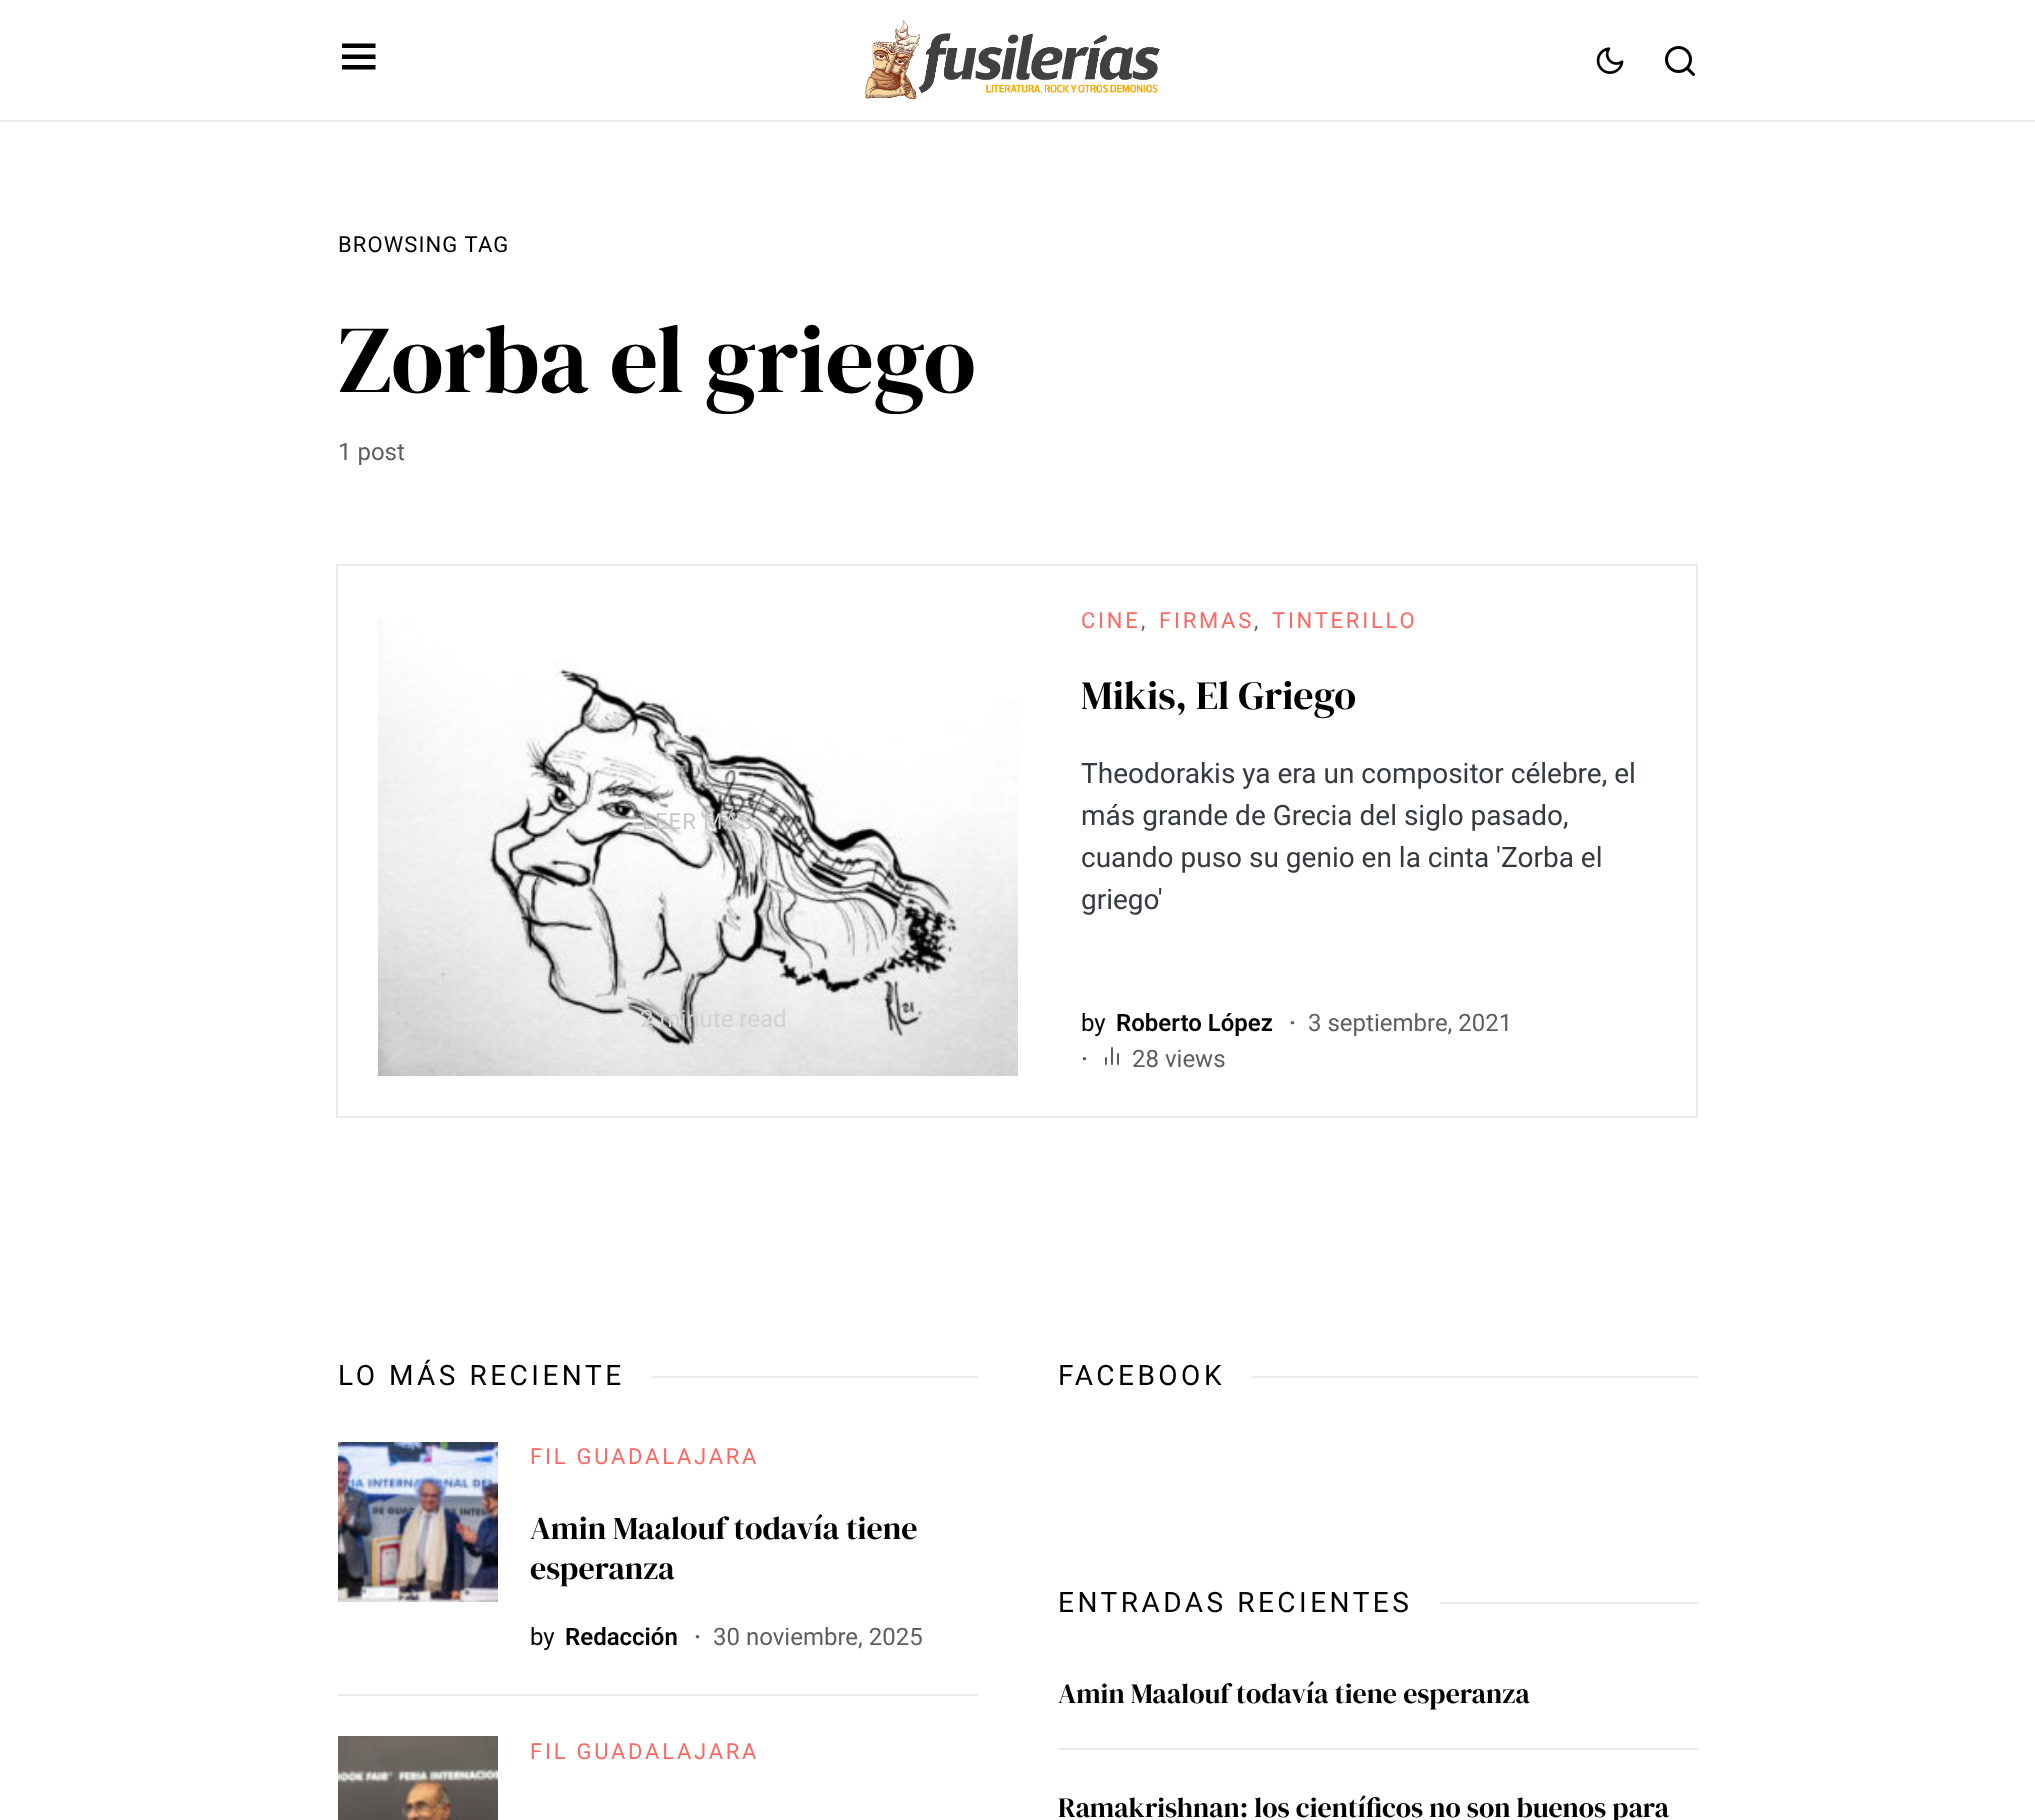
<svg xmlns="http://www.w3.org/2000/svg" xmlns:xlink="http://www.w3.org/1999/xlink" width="2035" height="1820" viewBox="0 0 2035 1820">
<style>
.cls-1{font:22px Roboto;letter-spacing:1.1px;fill:#000000}
.cls-2{font:96px DM Serif Display;fill:#000000}
.cls-3{font:24px Roboto;fill:#5e5e5e}
.cls-4{font:22px Roboto;letter-spacing:1.1px;fill:#c7c7c7}
.cls-5{font:24px Roboto;fill:#d1d1d1}
.cls-6{font:22px Roboto;letter-spacing:2.75px;fill:#ff6763}
.cls-7{font:22px Roboto;letter-spacing:2.75px;fill:#5e5e5e}
.cls-8{font:40px DM Serif Display;fill:#000000}
.cls-9{font:28px Roboto;fill:#343a40}
.cls-10{font:24px Roboto;fill:#000000}
.cls-11{font:600 24px Roboto;fill:#000000}
.cls-12{font:600 24px Roboto;fill:#5e5e5e}
.cls-13{font:28px Roboto;letter-spacing:3.5px;fill:#000000}
.cls-14{font:32px DM Serif Display;fill:#000000}
.cls-15{font:28px DM Serif Display;fill:#000000}
</style>
<rect width="100%" height="100%" fill="#ffffff"/>
<rect fill="#e9ecef" x="0" y="120" width="2035" height="2"/>
<path fill="#000000" d="M342 43.5H375.5V48H342ZM342 54.5H375.5V59H342ZM342 65H375.5V69.5H342Z"/>
<image xlink:href="image0.png" x="865" y="20" width="295" height="79"/>
<image xlink:href="image1.png" x="1596" y="47" width="28" height="27"/>
<image xlink:href="image2.png" x="1665" y="46" width="30" height="30"/>
<rect fill="none" stroke="#e9ecef" stroke-width="2" x="337" y="565" width="1360" height="552"/>
<image xlink:href="image3.png" x="378" y="619" width="640" height="457"/>
<image xlink:href="image4.png" x="1105" y="1047" width="14" height="18"/>
<rect fill="#e9ecef" x="652" y="1376" width="326" height="2"/>
<image xlink:href="image5.png" x="338" y="1442" width="160" height="160"/>
<rect fill="#e9ecef" x="338" y="1694" width="640" height="2"/>
<image xlink:href="image6.png" x="338" y="1736" width="160" height="84"/>
<rect fill="#e9ecef" x="1252" y="1376" width="446" height="2"/>
<rect fill="#e9ecef" x="1440" y="1602" width="258" height="2"/>
<rect fill="#e9ecef" x="1058" y="1748" width="640" height="2"/>
<text class="cls-1" x="338" y="252">BROWSING TAG</text>
<text class="cls-2" x="338" y="392">Zorba el griego</text>
<text class="cls-3" x="338" y="460">1 post</text>
<text class="cls-4" x="642" y="829">LEER MÁS</text>
<text class="cls-5" x="640" y="1027">2 minute read</text>
<text class="cls-6" x="1081" y="628">CINE</text>
<text class="cls-7" x="1141" y="628">,</text>
<text class="cls-6" x="1159" y="628">FIRMAS</text>
<text class="cls-7" x="1254" y="628">,</text>
<text class="cls-6" x="1272" y="628">TINTERILLO</text>
<text class="cls-8" x="1081" y="709">Mikis, El Griego</text>
<text class="cls-9"><tspan x="1081" y="783">Theodorakis ya era un compositor célebre, el</tspan><tspan x="1081" y="825">más grande de Grecia del siglo pasado,</tspan><tspan x="1081" y="867">cuando puso su genio en la cinta 'Zorba el</tspan><tspan x="1081" y="909">griego'</tspan></text>
<text class="cls-10" x="1081" y="1031">by</text>
<text class="cls-11" x="1116" y="1031">Roberto López</text>
<text class="cls-12" x="1289" y="1031">·</text>
<text class="cls-3" x="1308" y="1031">3 septiembre, 2021</text>
<text class="cls-12" x="1081" y="1067">·</text>
<text class="cls-3" x="1132" y="1067">28 views</text>
<text class="cls-13" x="338" y="1385">LO MÁS RECIENTE</text>
<text class="cls-6" x="530" y="1464">FIL GUADALAJARA</text>
<text class="cls-14"><tspan x="530" y="1539">Amin Maalouf todavía tiene</tspan><tspan x="530" y="1579">esperanza</tspan></text>
<text class="cls-10" x="530" y="1645">by</text>
<text class="cls-11" x="565" y="1645">Redacción</text>
<text class="cls-12" x="694" y="1645">·</text>
<text class="cls-3" x="713" y="1645">30 noviembre, 2025</text>
<text class="cls-6" x="530" y="1759">FIL GUADALAJARA</text>
<text class="cls-13" x="1058" y="1385">FACEBOOK</text>
<text class="cls-13" x="1058" y="1612">ENTRADAS RECIENTES</text>
<text class="cls-15" x="1058" y="1703">Amin Maalouf todavía tiene esperanza</text>
<text class="cls-15" x="1058" y="1817">Ramakrishnan: los científicos no son buenos para</text>
</svg>
